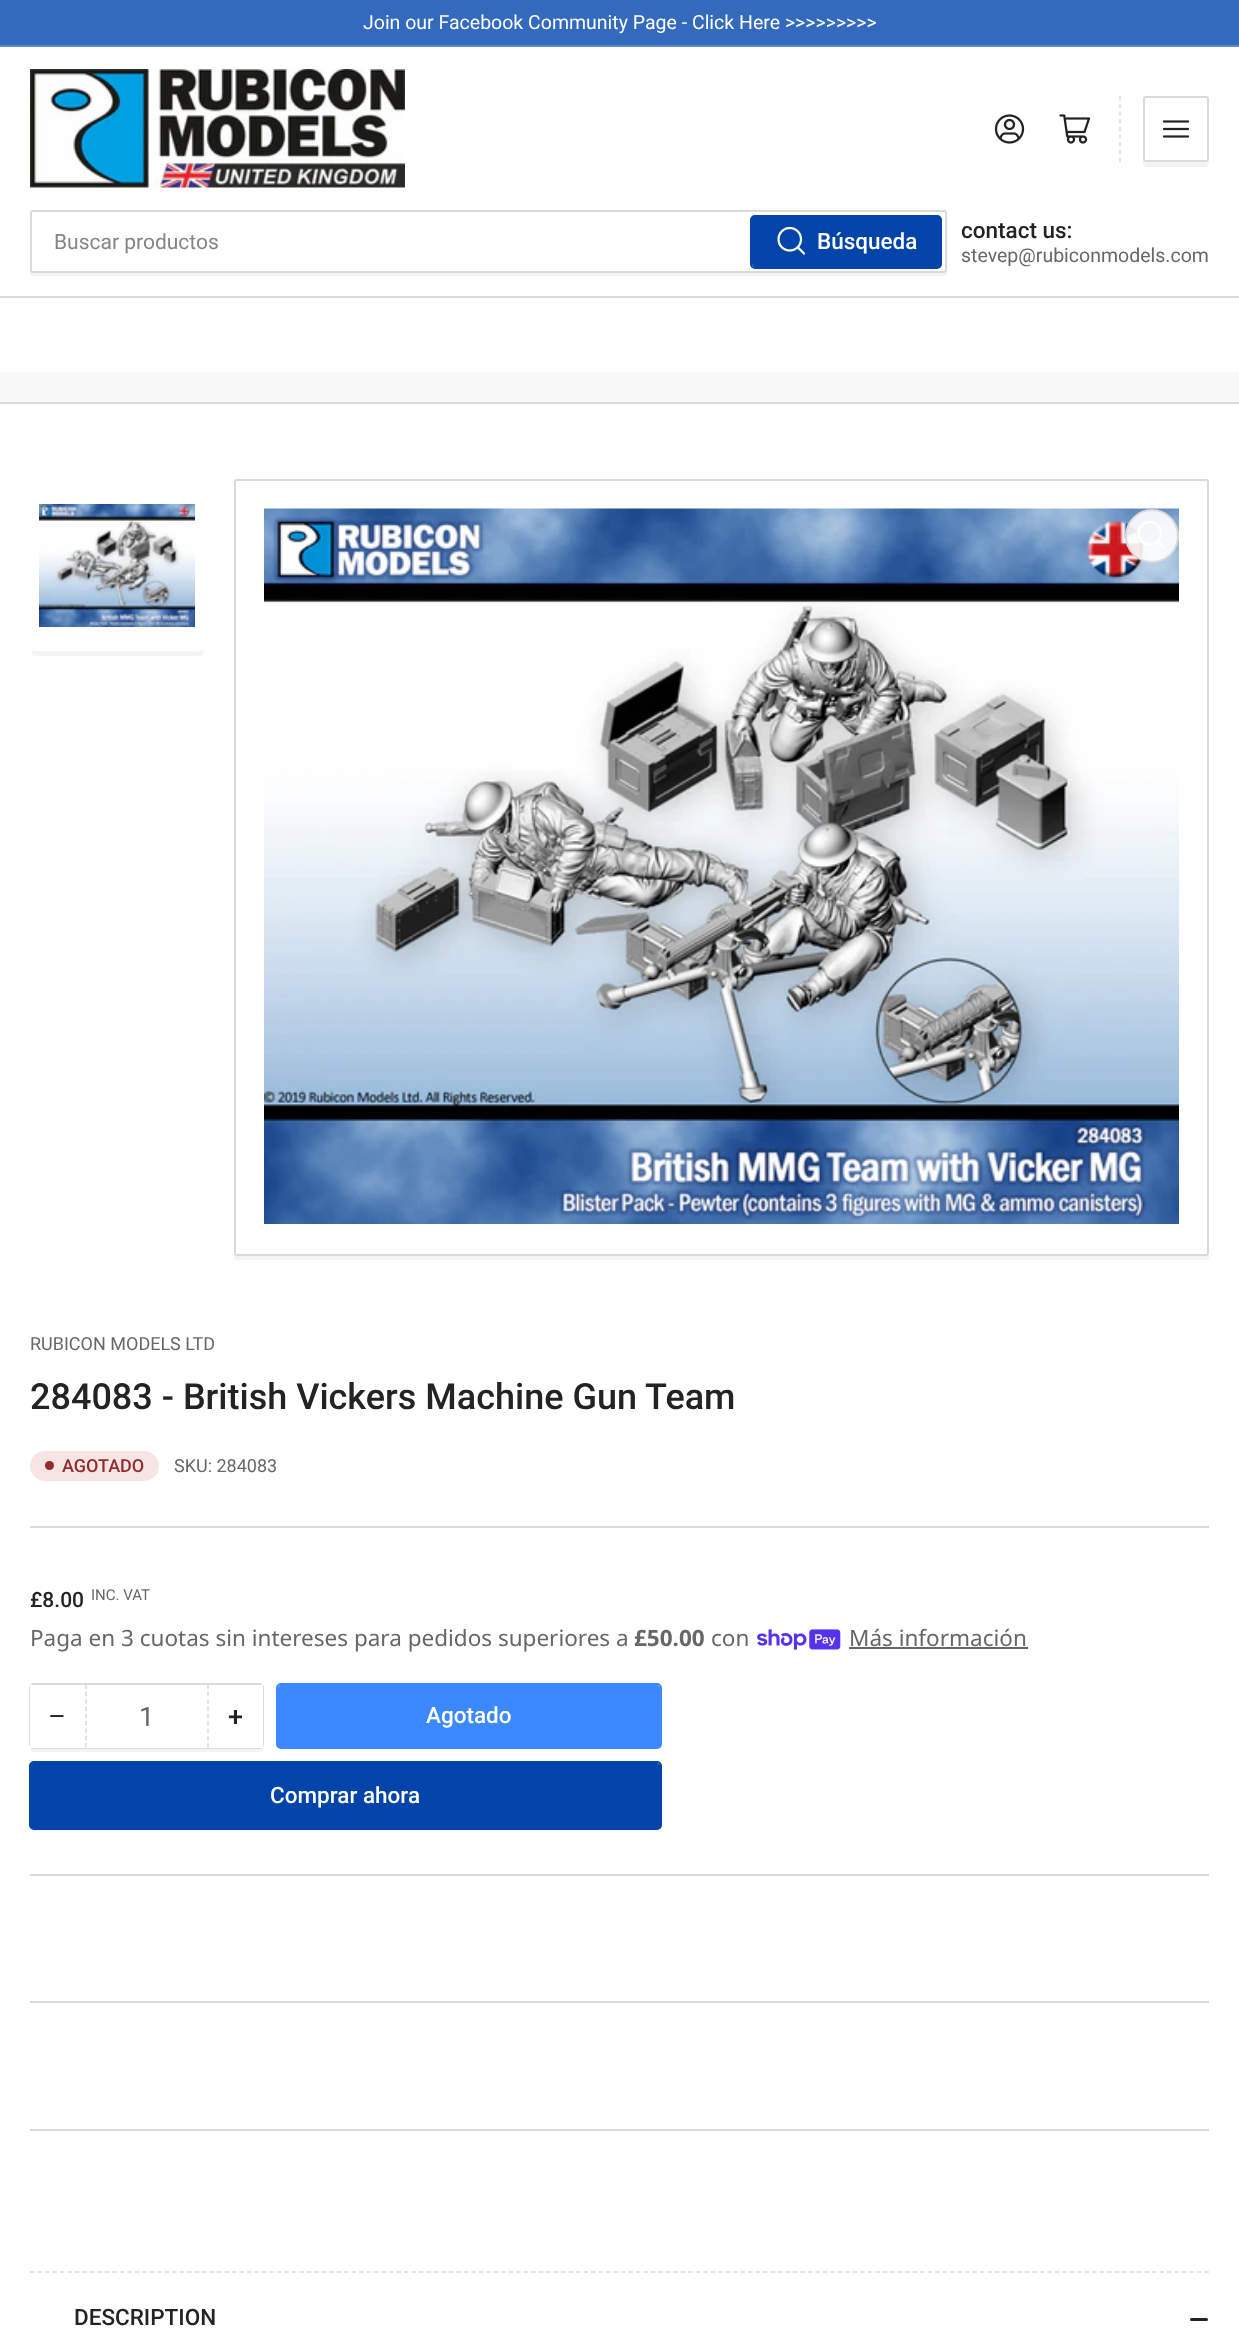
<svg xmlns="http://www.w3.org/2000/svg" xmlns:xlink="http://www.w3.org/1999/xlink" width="1239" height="2329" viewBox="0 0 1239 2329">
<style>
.cls-1{font:19.5px Roboto;fill:#ffffff}
.cls-2{font:21px Roboto;fill:#858585}
.cls-3{font:500 22.5px Roboto;fill:#ffffff}
.cls-4{font:500 22.5px Roboto;fill:#232323}
.cls-5{font:19.5px Roboto;fill:#676767}
.cls-6{font:18px Roboto;fill:#676767}
.cls-7{font:500 36px Roboto;fill:#232323}
.cls-8{font:500 18px Roboto;fill:#922c2c}
.cls-9{font:500 21px Roboto;fill:#232323}
.cls-10{font:15px Roboto;fill:#676767}
.cls-11{font:22.5px Noto Sans;fill:#676767}
.cls-12{font:bold 22.5px Noto Sans;fill:#676767}
.cls-13{font:27px Liberation Sans;fill:#232323}
.cls-14{font:27px Roboto;fill:#676767}
.cls-15{font:500 27px Roboto;fill:#232323}
</style>
<rect width="100%" height="100%" fill="#ffffff"/>
<rect fill="#336abd" x="0" y="0" width="1239" height="45"/>
<rect fill="#5c88ca" x="0" y="45" width="1239" height="2"/>
<rect fill="#dadada" x="0" y="296" width="1239" height="2"/>
<image xlink:href="image0.png" x="30" y="69" width="375" height="119"/>
<image xlink:href="image1.png" x="994" y="114" width="31" height="30"/>
<image xlink:href="image2.png" x="1059" y="114" width="32" height="30"/>
<path fill="none" stroke="#dadada" stroke-width="1.5" stroke-dasharray="4.5 3.18" d="M1120 96V162"/>
<path fill="#f4f4f4" d="M1143 159C1143 169 1144 167 1156 167H1196C1208 167 1209 169 1209 159C1209 161 1208 162 1206 162H1146C1144 162 1143 161 1143 159Z"/>
<rect fill="none" stroke="#dadada" stroke-width="2" x="1144" y="97" width="64" height="64" rx="2"/>
<image xlink:href="image3.png" x="1162" y="120" width="28" height="18"/>
<path fill="#f4f4f4" d="M30 270V273C30 275 31 276 33 276H944C946 276 947 275 947 273V216L946 214V270C946 272 945 273 944 273H33C31 273 30 272 30 270Z"/>
<rect fill="#ffffff" stroke="#dadada" stroke-width="2" x="31" y="211" width="915" height="61" rx="2"/>
<rect fill="none" stroke="#0244a9" stroke-width="2" x="751" y="216" width="190" height="52" rx="4"/>
<rect fill="#0244a9" x="752" y="216" width="189" height="51" rx="3"/>
<image xlink:href="image4.png" x="777" y="226" width="29" height="29"/>
<rect fill="#f8f8f8" x="0" y="372" width="1239" height="30"/>
<rect fill="#dadada" x="0" y="402" width="1239" height="2"/>
<path fill="#f4f4f4" d="M32 650V653C32 655 33 656 35 656H200C202 656 203 655 203 653V488L202 486V621C202 659 210 651 172 651H34Z"/>
<rect fill="#ffffff" stroke="#ffffff" stroke-width="2" x="33" y="481" width="169" height="169" rx="2"/>
<image xlink:href="image5.png" x="39" y="504" width="156" height="123"/>
<path fill="#f4f4f4" d="M234 1252V1257C234 1259 235 1260 237 1260H1206C1208 1260 1209 1259 1209 1257V1252C1209 1254 1208 1256 1206 1256H237C235 1256 234 1254 234 1252Z"/>
<rect fill="#ffffff" stroke="#dadada" stroke-width="2" x="235" y="480" width="973" height="775" rx="2"/>
<image xlink:href="image6.png" x="264" y="508" width="915" height="716"/>
<circle fill="#ffffff" fill-opacity="0.9" stroke="#dadada" stroke-width="2" cx="1152" cy="536" r="26"/>
<image xlink:href="image7.png" x="1137" y="521" width="28" height="27"/>
<rect fill="#dadada" x="30" y="1526" width="1179" height="2"/>
<rect fill="#f7e5e5" x="30" y="1451" width="129" height="30" rx="15"/>
<circle fill="#922c2c" cx="49.5" cy="1465.5" r="4.5"/>
<image xlink:href="image8.png" x="757" y="1629" width="84" height="21"/>
<rect fill="#676767" x="849" y="1647" width="179" height="2"/>
<path fill="#f4f4f4" d="M30 1744V1749C30 1751 31 1752 33 1752H260C262 1752 263 1751 263 1749V1692L262 1690V1744C262 1746 261 1748 260 1748H33C31 1748 30 1746 30 1744Z"/>
<rect fill="none" stroke="#dadada" stroke-width="2" x="30" y="1684" width="233" height="64" rx="4"/>
<rect fill="#ffffff" x="86" y="1747" width="123" height="1"/>
<rect fill="#ffffff" x="30" y="1685" width="56" height="63"/>
<path fill="none" stroke="#dadada" stroke-width="1.5" stroke-dasharray="4.5 2.82" d="M208 1684.5V1747.5"/>
<path fill="none" stroke="#dadada" stroke-width="1.5" stroke-dasharray="4.5 2.82" d="M86 1684.5V1747.5"/>
<rect fill="#ffffff" x="209" y="1685" width="54" height="63"/>
<rect fill="none" stroke="#3c89ff" stroke-width="2" x="277" y="1684" width="384" height="64" rx="4"/>
<rect fill="#3c89ff" x="278" y="1685" width="382" height="63" rx="3"/>
<rect fill="none" stroke="#0244a9" stroke-width="2" x="30" y="1762" width="631" height="67" rx="4"/>
<rect fill="#0244a9" x="30" y="1763" width="630" height="66" rx="3"/>
<rect fill="#dadada" x="30" y="1874" width="1179" height="2"/>
<rect fill="#dadada" x="30" y="2001" width="1179" height="2"/>
<rect fill="#dadada" x="30" y="2129" width="1179" height="2"/>
<path fill="none" stroke="#dadada" stroke-width="1.5" stroke-dasharray="4.5 2.98" d="M30 2272H1209"/>
<rect fill="#232323" x="1190" y="2318" width="10" height="3" rx="1.5"/>
<rect fill="#232323" x="1196" y="2318" width="12" height="3" rx="1.5"/>
<text class="cls-1" x="363" y="29">Join our Facebook Community Page - Click Here &gt;&gt;&gt;&gt;&gt;&gt;&gt;&gt;&gt;</text>
<text class="cls-2" x="54" y="249">Buscar productos</text>
<text class="cls-3" x="817" y="249">Búsqueda</text>
<text class="cls-4" x="961" y="238">contact us:</text>
<text class="cls-5" x="961" y="262">stevep@rubiconmodels.com</text>
<text class="cls-6" x="30" y="1350">RUBICON MODELS LTD</text>
<text class="cls-7" x="30" y="1409">284083 - British Vickers Machine Gun Team</text>
<text class="cls-8" x="62" y="1472">AGOTADO</text>
<text class="cls-6" x="174" y="1472">SKU: 284083</text>
<text class="cls-9" x="30" y="1607">£8.00</text>
<text class="cls-10" x="91" y="1600">INC. VAT</text>
<text class="cls-11" x="30" y="1646">Paga en 3 cuotas sin intereses para pedidos superiores a</text>
<text class="cls-12" x="634" y="1646">£50.00</text>
<text class="cls-11" x="711" y="1646">con</text>
<text class="cls-11" x="849" y="1646">Más información</text>
<text class="cls-13" x="49" y="1725">−</text>
<text class="cls-14" x="139" y="1726">1</text>
<text class="cls-15" x="228" y="1726">+</text>
<text class="cls-3" x="426" y="1723">Agotado</text>
<text class="cls-3" x="270" y="1803">Comprar ahora</text>
<text class="cls-4" x="74" y="2325">DESCRIPTION</text>
</svg>
